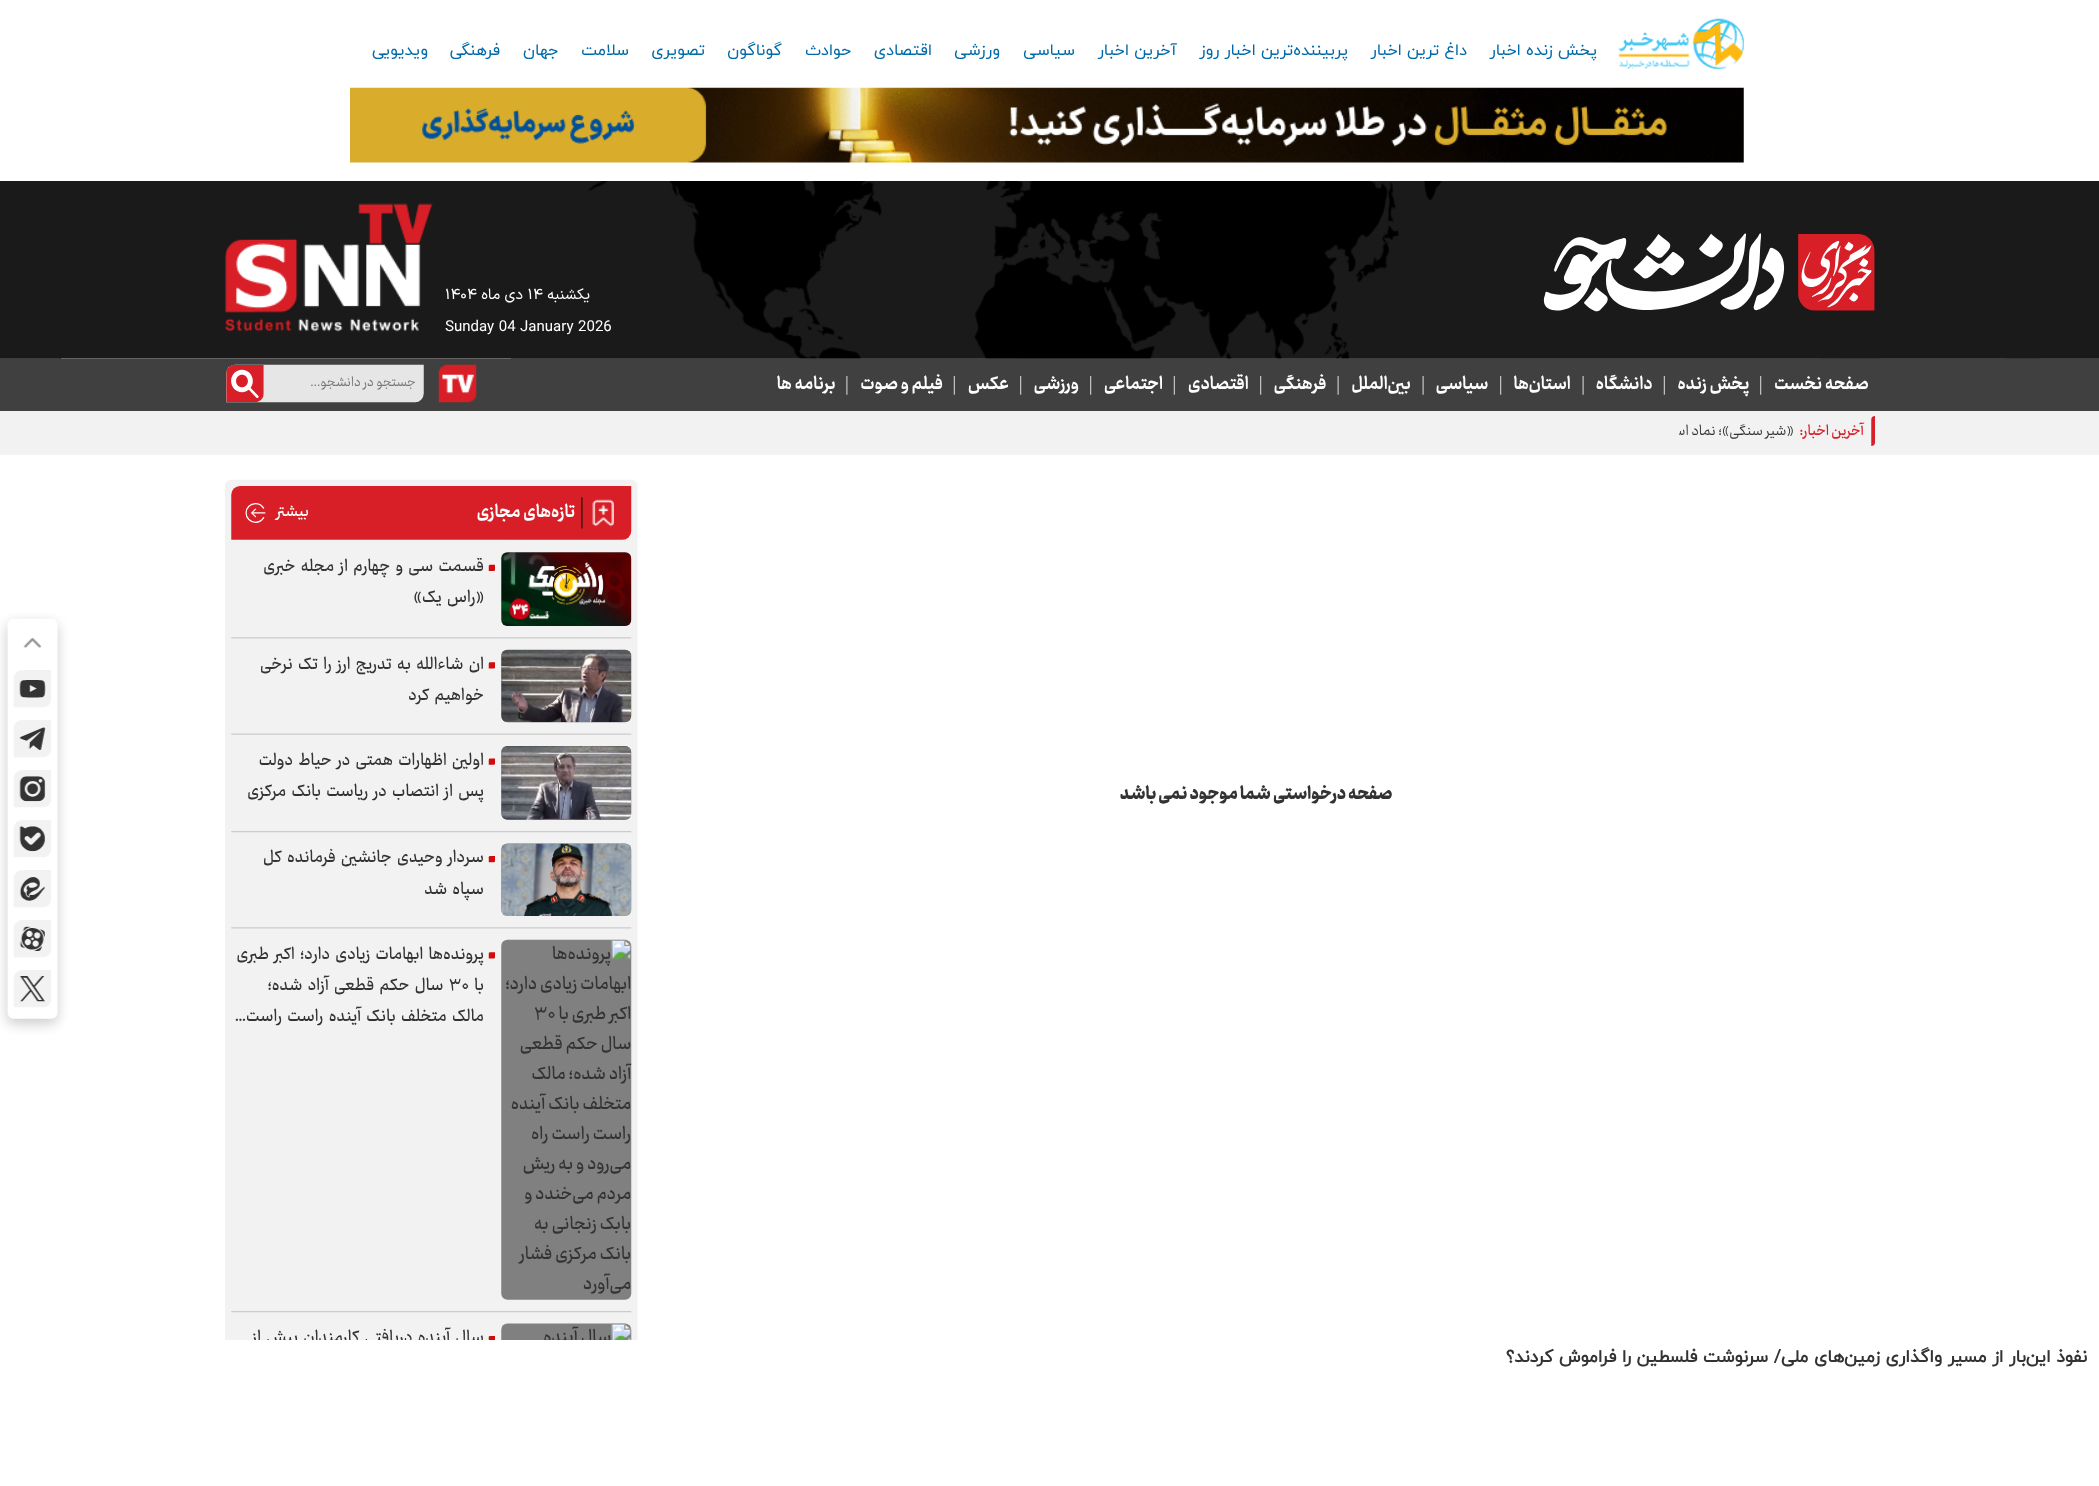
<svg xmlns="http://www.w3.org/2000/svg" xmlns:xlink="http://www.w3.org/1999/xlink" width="2099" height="1486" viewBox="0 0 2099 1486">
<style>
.cls-1{font:16.25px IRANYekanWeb;direction:rtl;fill:#006aa9}
.cls-2{font:bold 17.5px IRANYekanWeb;direction:rtl;fill:#333333}
</style>
<rect width="100%" height="100%" fill="#ffffff"/>
<image xlink:href="image0.png" x="1618" y="18" width="126" height="51"/>
<image xlink:href="image1.png" x="350" y="87" width="1394" height="76"/>
<image xlink:href="image2.png" x="0" y="181" width="2099" height="1159"/>
<text class="cls-1" x="1597" y="55">پخش زنده اخبار</text>
<text class="cls-1" x="1467" y="55">داغ ترین اخبار</text>
<text class="cls-1" x="1348" y="55">پربیننده‌ترین اخبار روز</text>
<text class="cls-1" x="1177" y="55">آخرین اخبار</text>
<text class="cls-1" x="1075" y="55">سیاسی</text>
<text class="cls-1" x="1000" y="55">ورزشی</text>
<text class="cls-1" x="932" y="55">اقتصادی</text>
<text class="cls-1" x="851" y="55">حوادث</text>
<text class="cls-1" x="782" y="55">گوناگون</text>
<text class="cls-1" x="705" y="55">تصویری</text>
<text class="cls-1" x="629" y="55">سلامت</text>
<text class="cls-1" x="558" y="55">جهان</text>
<text class="cls-1" x="500" y="55">فرهنگی</text>
<text class="cls-1" x="428" y="55">ویدیویی</text>
<text class="cls-2" x="2087" y="1362">نفوذ این‌بار از مسیر واگذاری زمین‌های ملی/ سرنوشت فلسطین را فراموش کردند؟</text>
</svg>
